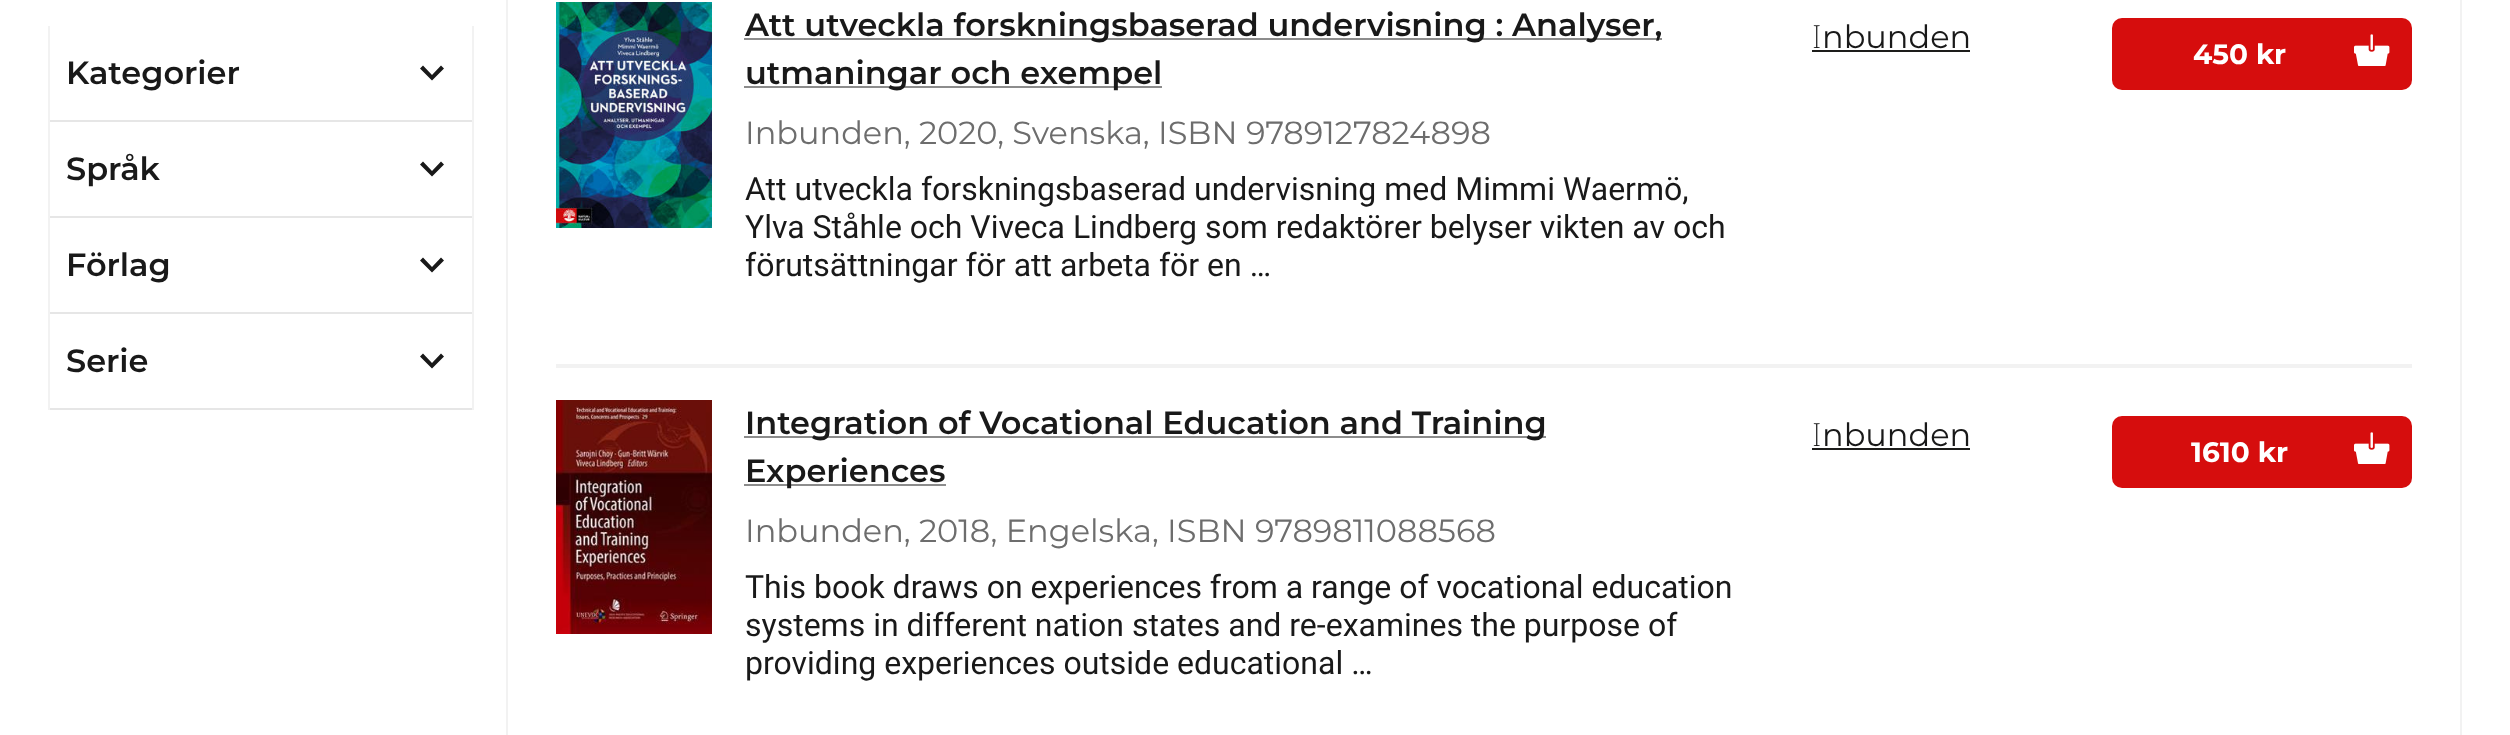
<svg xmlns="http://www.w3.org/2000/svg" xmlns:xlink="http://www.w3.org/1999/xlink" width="2510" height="735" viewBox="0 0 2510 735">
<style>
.cls-1{font:600 32px Montserrat;fill:#191919}
.cls-2{font:32px Montserrat;fill:#6d6d6d}
.cls-3{font:32px Roboto;fill:#191919}
.cls-4{font:200 32px Noto Sans;fill:#191919}
.cls-5{font:32px Montserrat;fill:#191919}
.cls-6{font:bold 28px Montserrat;fill:#ffffff}
</style>
<rect width="100%" height="100%" fill="#ffffff"/>
<rect fill="#f2f2f2" x="472" y="26" width="2" height="384"/>
<rect fill="#f2f2f2" x="48" y="26" width="2" height="384"/>
<rect fill="#e6e6e6" x="50" y="120" width="422" height="2"/>
<path fill="#191919" d="M423 65.5L432 75L441 65.5L444 68.5L432 80.5L420 68.5Z"/>
<rect fill="#e6e6e6" x="50" y="216" width="422" height="2"/>
<path fill="#191919" d="M423 161.5L432 171L441 161.5L444 164.5L432 176.5L420 164.5Z"/>
<rect fill="#e6e6e6" x="50" y="312" width="422" height="2"/>
<path fill="#191919" d="M423 257.5L432 267L441 257.5L444 260.5L432 272.5L420 260.5Z"/>
<rect fill="#e6e6e6" x="50" y="408" width="422" height="2"/>
<path fill="#191919" d="M423 353.5L432 363L441 353.5L444 356.5L432 368.5L420 356.5Z"/>
<rect fill="none" stroke="#f2f2f2" stroke-width="2" x="507" y="-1" width="1954" height="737"/>
<image xlink:href="image0.png" x="556" y="2" width="156" height="226"/>
<rect fill="#8c8c8c" x="744" y="38" width="918" height="2"/>
<rect fill="#8c8c8c" x="744" y="86" width="418" height="2"/>
<rect fill="#1d1d1b" x="1812" y="50" width="158" height="2"/>
<rect fill="#d60d0d" x="2112" y="18" width="300" height="72" rx="10"/>
<image xlink:href="image1.png" x="2354" y="34" width="36" height="32"/>
<rect fill="#f2f2f2" x="556" y="364" width="1856" height="4"/>
<image xlink:href="image2.png" x="556" y="400" width="156" height="234"/>
<rect fill="#8c8c8c" x="744" y="436" width="802" height="2"/>
<rect fill="#8c8c8c" x="744" y="484" width="202" height="2"/>
<rect fill="#1d1d1b" x="1812" y="448" width="158" height="2"/>
<rect fill="#d60d0d" x="2112" y="416" width="300" height="72" rx="10"/>
<image xlink:href="image1.png" x="2354" y="432" width="36" height="32"/>
<text class="cls-1" x="66" y="84">Kategorier</text>
<text class="cls-1" x="66" y="180">Språk</text>
<text class="cls-1" x="66" y="276">Förlag</text>
<text class="cls-1" x="66" y="372">Serie</text>
<text class="cls-1"><tspan x="745" y="36">Att utveckla forskningsbaserad undervisning : Analyser,</tspan><tspan x="745" y="84">utmaningar och exempel</tspan></text>
<text class="cls-2" x="745" y="144">Inbunden, 2020, Svenska, ISBN 9789127824898</text>
<text class="cls-3"><tspan x="745" y="200">Att utveckla forskningsbaserad undervisning med Mimmi Waermö,</tspan><tspan x="745" y="238">Ylva Ståhle och Viveca Lindberg som redaktörer belyser vikten av och</tspan><tspan x="745" y="276">förutsättningar för att arbeta för en …</tspan></text>
<text class="cls-4" x="1812" y="48">I</text>
<text class="cls-5" x="1822" y="48">nbunden</text>
<text class="cls-6" x="2193" y="64">450 kr</text>
<text class="cls-1"><tspan x="745" y="434">Integration of Vocational Education and Training</tspan><tspan x="745" y="482">Experiences</tspan></text>
<text class="cls-2" x="745" y="542">Inbunden, 2018, Engelska, ISBN 9789811088568</text>
<text class="cls-3"><tspan x="745" y="598">This book draws on experiences from a range of vocational education</tspan><tspan x="745" y="636">systems in different nation states and re-examines the purpose of</tspan><tspan x="745" y="674">providing experiences outside educational …</tspan></text>
<text class="cls-4" x="1812" y="446">I</text>
<text class="cls-5" x="1822" y="446">nbunden</text>
<text class="cls-6" x="2191" y="462">1610 kr</text>
</svg>
